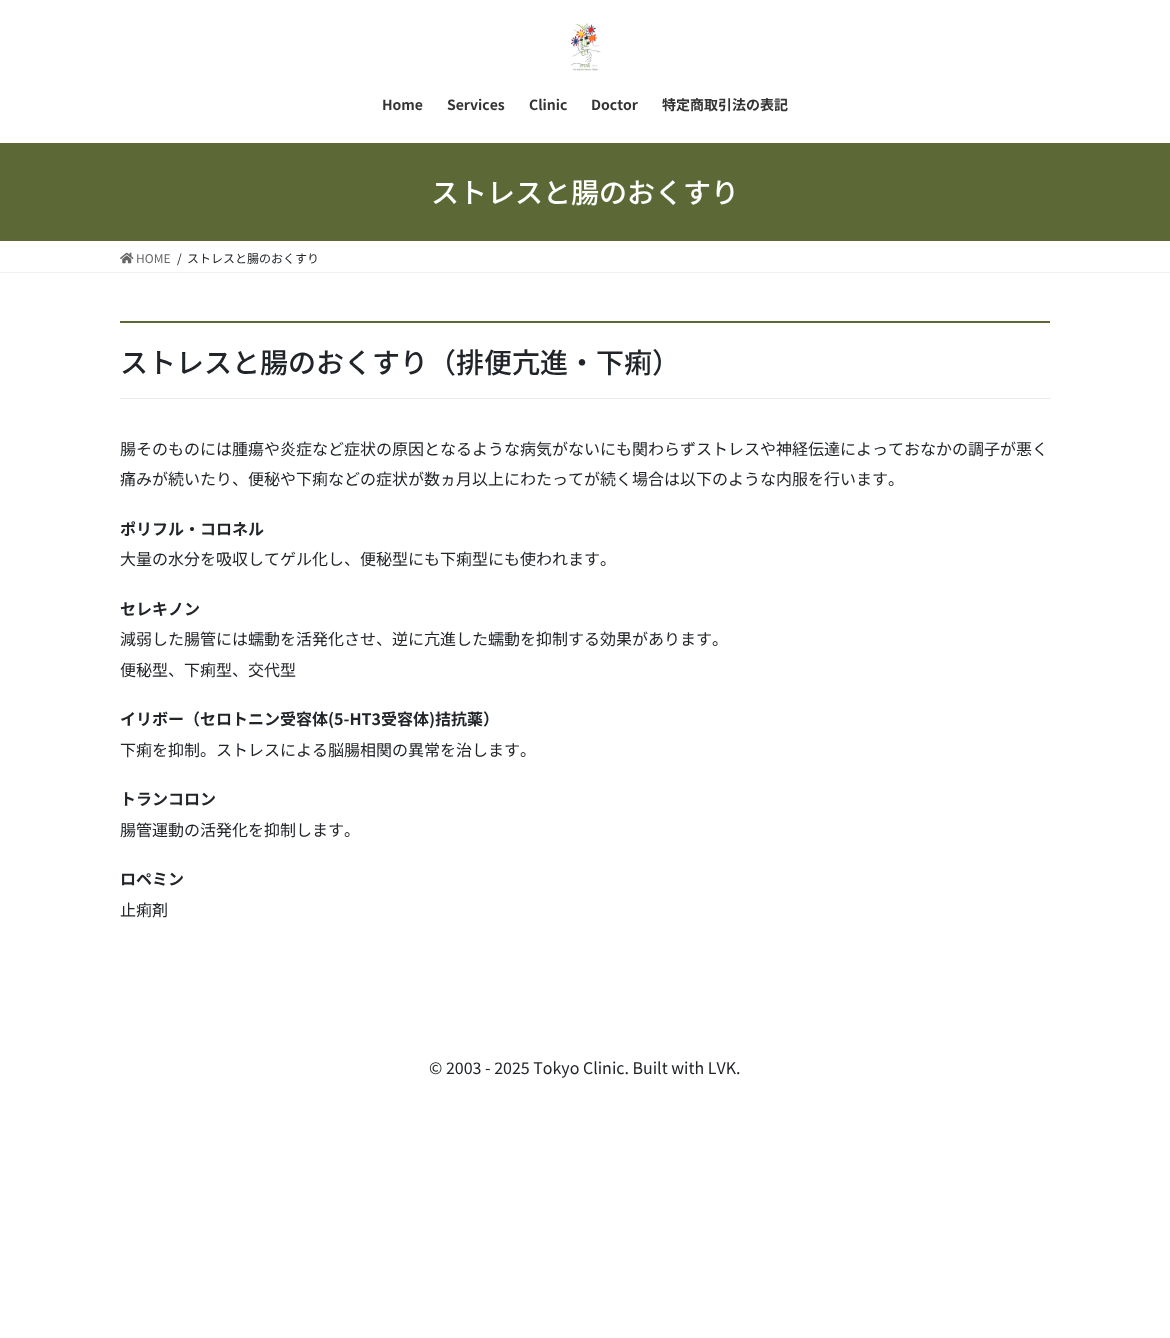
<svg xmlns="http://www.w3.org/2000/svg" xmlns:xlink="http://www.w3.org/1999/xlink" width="1170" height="1338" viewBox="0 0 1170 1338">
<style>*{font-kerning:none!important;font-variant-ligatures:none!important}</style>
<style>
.cls-1{font:bold 14px Noto Sans JP;fill:#333333}
.cls-2{font:500 28px Noto Sans JP;fill:#ffffff}
.cls-3{font:12px Noto Sans JP;fill:#666666}
.cls-4{font:12px Noto Sans JP;fill:#212529}
.cls-5{font:500 28px Noto Sans JP;fill:#212529}
.cls-6{font:16px Noto Sans JP;fill:#212529}
.cls-7{font:bold 16px Noto Sans JP;fill:#212529}
</style>
<rect width="100%" height="100%" fill="#ffffff"/>
<image xlink:href="image0.png" x="570" y="23" width="31" height="48"/>
<rect fill="#5c6836" x="0" y="143" width="1170" height="98"/>
<rect fill="#f2f2f2" x="0" y="272" width="1170" height="1"/>
<image xlink:href="image1.png" x="120" y="252" width="14" height="12"/>
<rect fill="#5c6836" x="120" y="321" width="930" height="2"/>
<rect fill="#e9e9e9" x="120" y="398" width="930" height="1"/>
<text class="cls-1" x="382" y="110">Home</text>
<text class="cls-1" x="447" y="110">Services</text>
<text class="cls-1" x="529" y="110">Clinic</text>
<text class="cls-1" x="591" y="110">Doctor</text>
<text class="cls-1" x="662" y="110">特定商取引法の表記</text>
<text class="cls-2" x="431" y="203">ストレスと腸のおくすり</text>
<text class="cls-3" x="136" y="263">HOME</text>
<text class="cls-4" x="177" y="263">/</text>
<text class="cls-4" x="187" y="263">ストレスと腸のおくすり</text>
<text class="cls-5" x="120" y="373">ストレスと腸のおくすり（排便亢進・下痢）</text>
<text class="cls-6"><tspan x="120" y="455">腸そのものには腫瘍や炎症など症状の原因となるような病気がないにも関わらずストレスや神経伝達によっておなかの調子が悪く</tspan><tspan x="120" y="485">痛みが続いたり、便秘や下痢などの症状が数ヵ月以上にわたってが続く場合は以下のような内服を行います。</tspan></text>
<text class="cls-7" x="120" y="535">ポリフル・コロネル</text>
<text class="cls-6" x="120" y="565">大量の水分を吸収してゲル化し、便秘型にも下痢型にも使われます。</text>
<text class="cls-7" x="120" y="615">セレキノン</text>
<text class="cls-6"><tspan x="120" y="645">減弱した腸管には蠕動を活発化させ、逆に亢進した蠕動を抑制する効果があります。</tspan><tspan x="120" y="676">便秘型、下痢型、交代型</tspan></text>
<text class="cls-7" x="120" y="725">イリボー（セロトニン受容体(5-HT3受容体)拮抗薬）</text>
<text class="cls-6" x="120" y="756">下痢を抑制。ストレスによる脳腸相関の異常を治します。</text>
<text class="cls-7" x="120" y="805">トランコロン</text>
<text class="cls-6" x="120" y="836">腸管運動の活発化を抑制します。</text>
<text class="cls-7" x="120" y="885">ロペミン</text>
<text class="cls-6" x="120" y="916">止痢剤</text>
<text class="cls-6" x="429" y="1074">© 2003 - 2025 Tokyo Clinic. Built with LVK.</text>
</svg>
